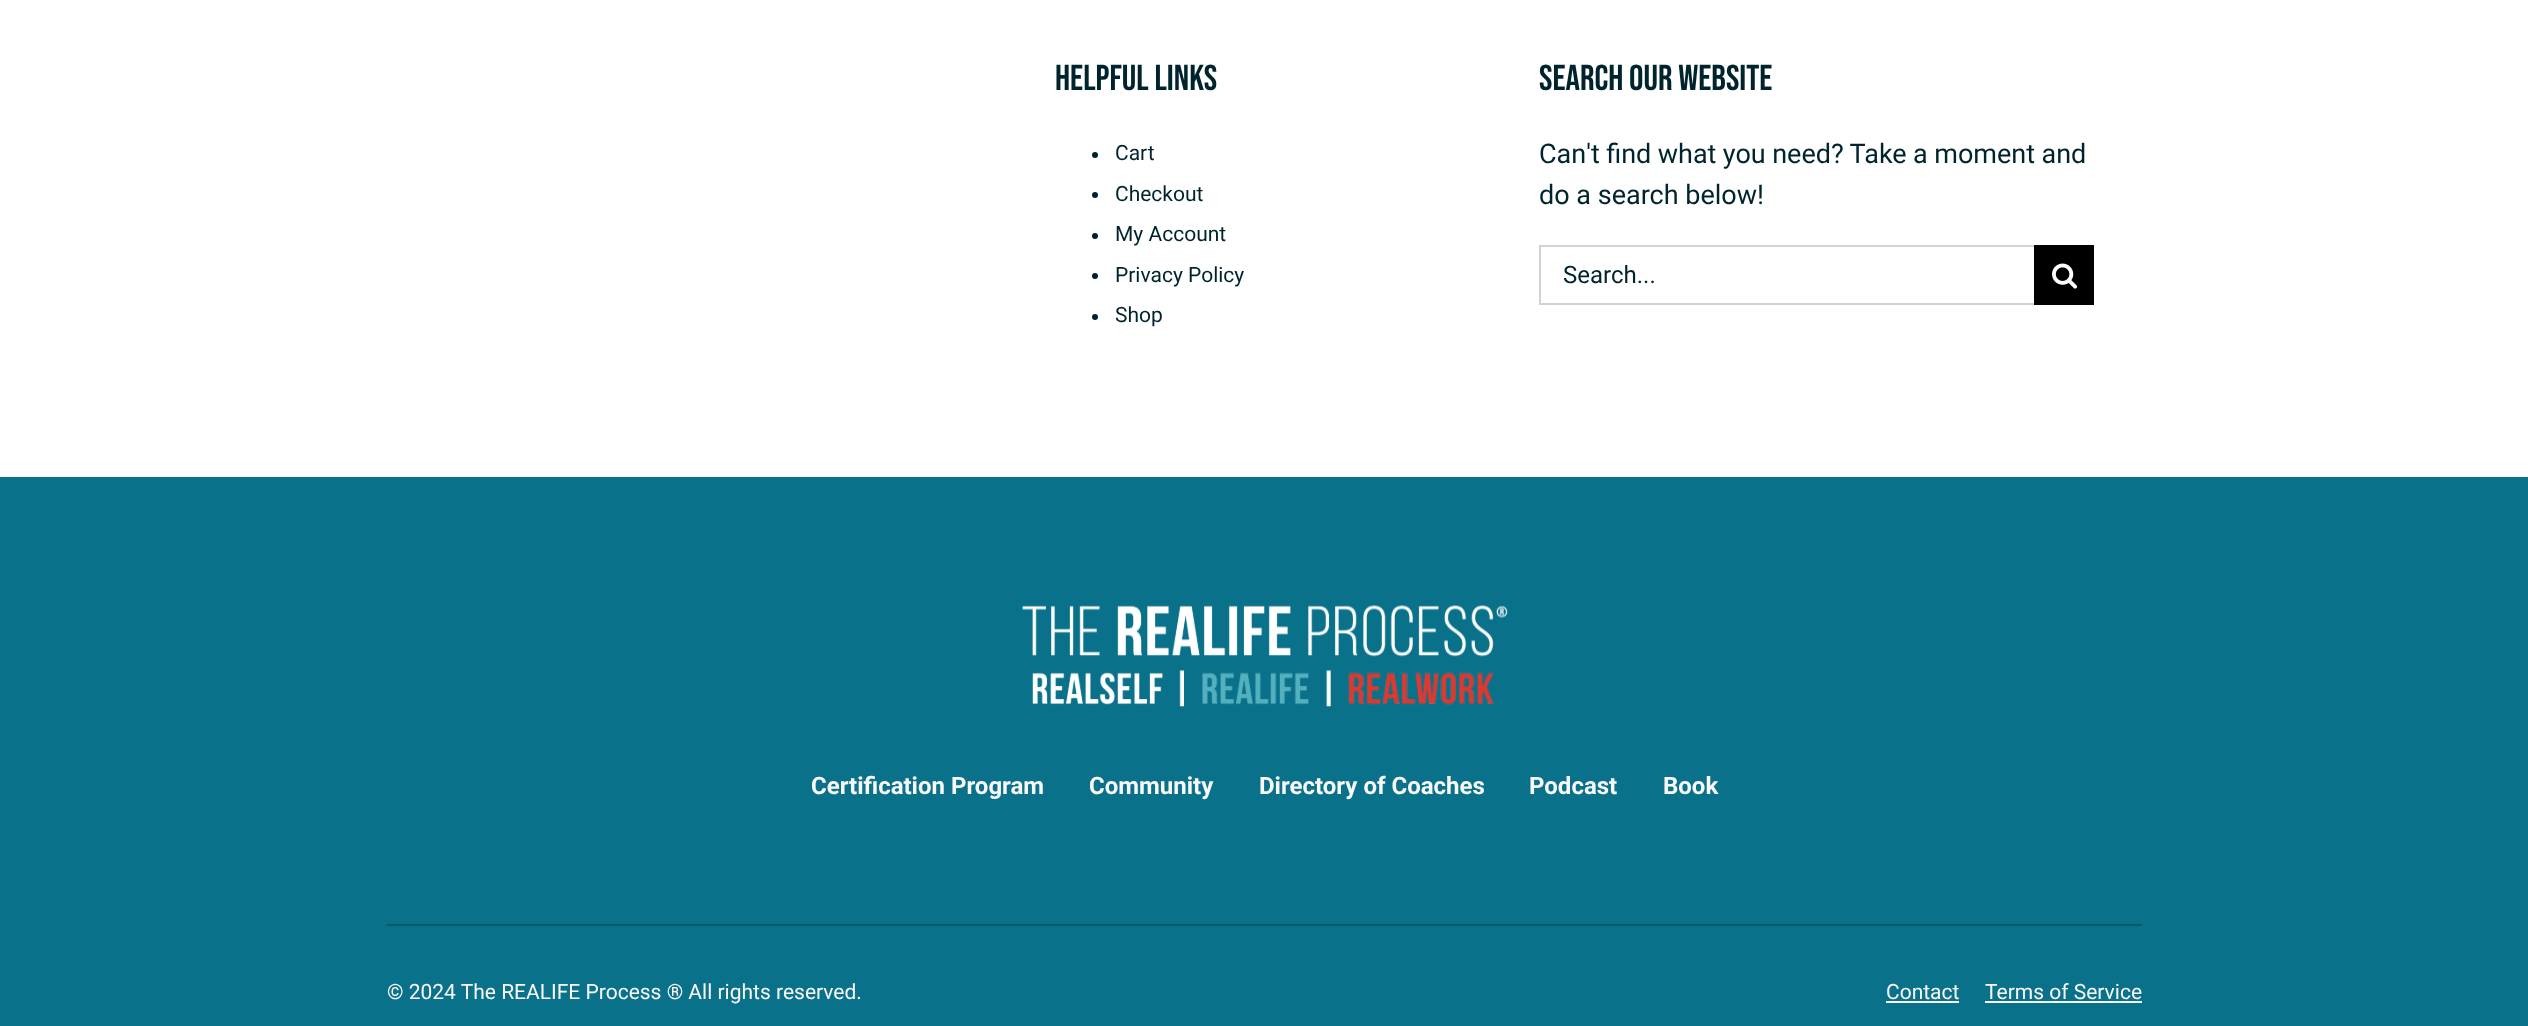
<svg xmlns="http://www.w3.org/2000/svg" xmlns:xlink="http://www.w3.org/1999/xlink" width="2528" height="1026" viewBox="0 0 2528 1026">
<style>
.cls-1{font:36px Bebas Neue;fill:#00242d}
.cls-2{font:21px Roboto;fill:#00242d}
.cls-3{font:27px Roboto;fill:#00242d}
.cls-4{font:24px Roboto;fill:#00242d}
.cls-5{font:bold 24px Roboto;fill:#faf9f9}
.cls-6{font:21px Roboto;fill:#faf9f9}
</style>
<rect width="100%" height="100%" fill="#ffffff"/>
<circle fill="#00242d" cx="1095" cy="155" r="3"/>
<circle fill="#00242d" cx="1095" cy="195" r="3"/>
<circle fill="#00242d" cx="1095" cy="236" r="3"/>
<circle fill="#00242d" cx="1095" cy="276" r="3"/>
<circle fill="#00242d" cx="1095" cy="317" r="3"/>
<rect fill="#d2d2d2" x="1539" y="245" width="495" height="2"/>
<rect fill="#d2d2d2" x="1539" y="303" width="495" height="2"/>
<rect fill="#d2d2d2" x="1539" y="245" width="2" height="60"/>
<rect fill="#000000" x="2034" y="245" width="60" height="60"/>
<image xlink:href="image0.png" x="2052" y="263" width="26" height="26"/>
<rect fill="#09718a" x="0" y="477" width="2528" height="549"/>
<image xlink:href="image1.png" x="1022" y="605" width="486" height="102"/>
<rect fill="#075a6e" x="387" y="924" width="1755" height="2"/>
<rect fill="#faf9f9" x="1886" y="1001" width="73" height="2"/>
<rect fill="#faf9f9" x="1985" y="1001" width="157" height="2"/>
<text class="cls-1" x="1055" y="90">Helpful Links</text>
<text class="cls-2"><tspan x="1115" y="160">Cart</tspan><tspan x="1115" y="201">Checkout</tspan><tspan x="1115" y="241">My Account</tspan><tspan x="1115" y="282">Privacy Policy</tspan><tspan x="1115" y="322">Shop</tspan></text>
<text class="cls-1" x="1539" y="90">Search Our Website</text>
<text class="cls-3"><tspan x="1539" y="163" word-spacing="-0.25">Can't find what you need? Take a moment and</tspan><tspan x="1539" y="204">do a search below!</tspan></text>
<text class="cls-4" x="1563" y="283">Search...</text>
<text class="cls-5" x="811" y="794">Certification Program</text>
<text class="cls-5" x="1089" y="794">Community</text>
<text class="cls-5" x="1259" y="794">Directory of Coaches</text>
<text class="cls-5" x="1529" y="794">Podcast</text>
<text class="cls-5" x="1663" y="794">Book</text>
<text class="cls-6" x="387" y="999">© 2024 The REALIFE Process ® All rights reserved.</text>
<text class="cls-6" x="1886" y="999">Contact</text>
<text class="cls-6" x="1985" y="999">Terms of Service</text>
</svg>
